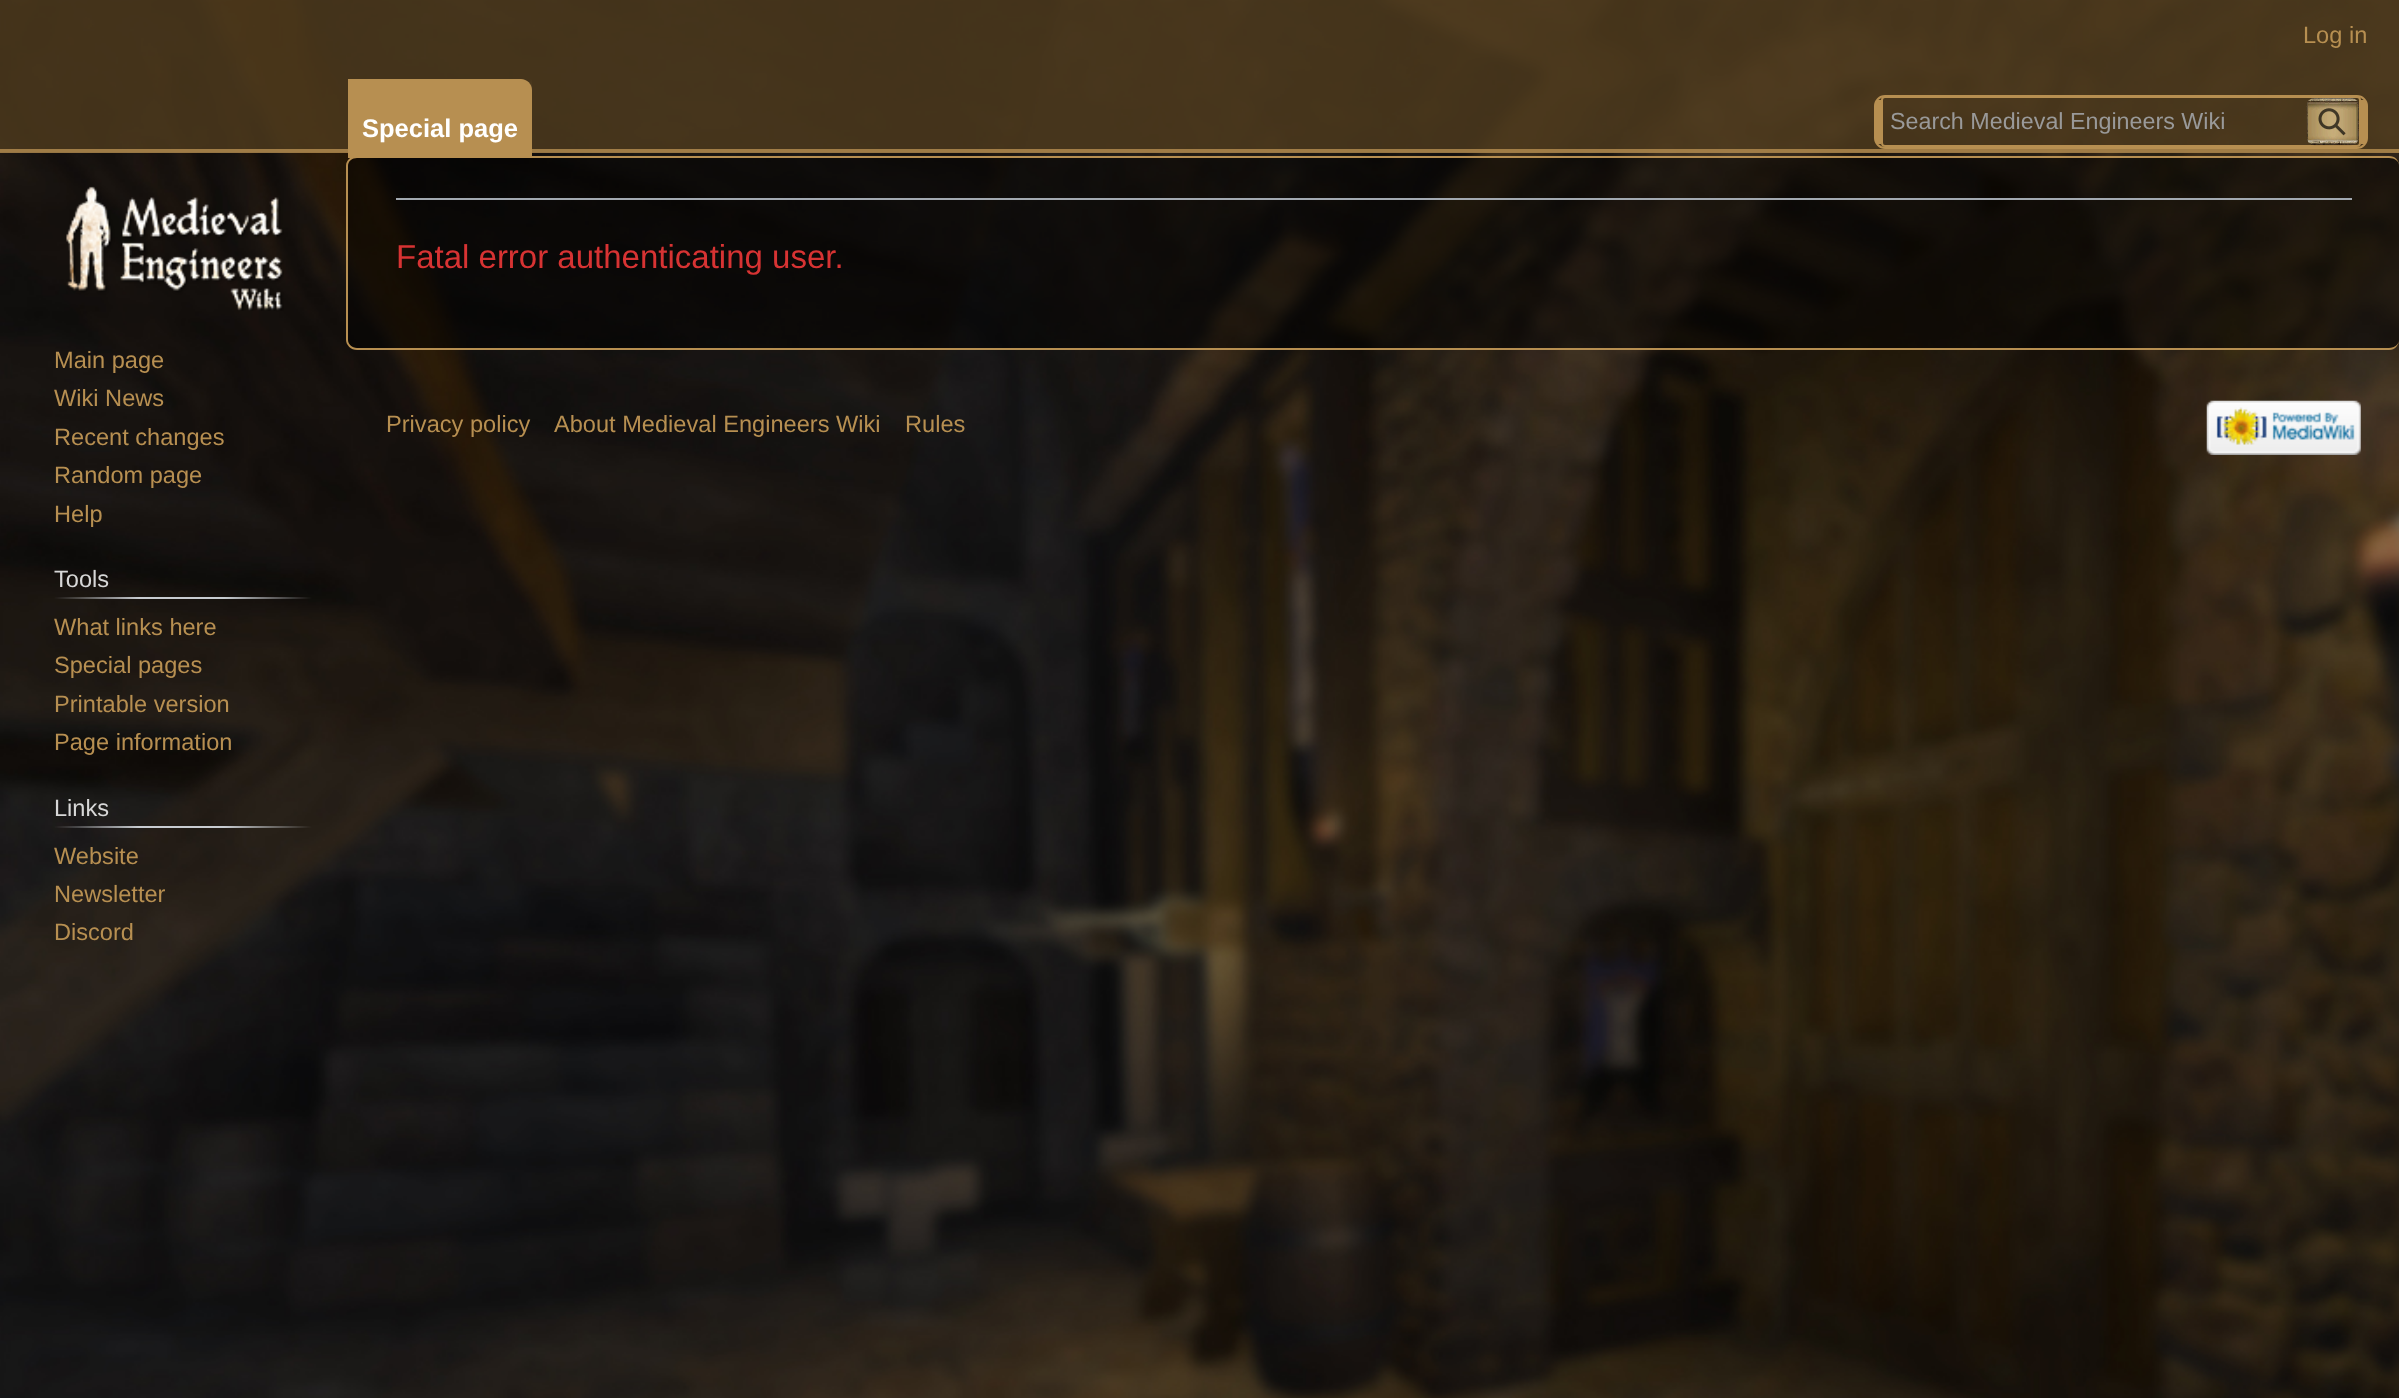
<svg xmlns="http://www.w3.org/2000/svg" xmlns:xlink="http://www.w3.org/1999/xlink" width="2399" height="1398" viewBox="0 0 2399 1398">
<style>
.cls-1{font:23.6px Liberation Sans;fill:#b78f51}
.cls-2{font:bold 25.5px Liberation Sans;fill:#ffffff}
.cls-3{font:23.3px Liberation Sans;fill:#999999}
.cls-4{font:23.6px Liberation Sans;fill:#d7d7d7}
.cls-5{font:33px Liberation Sans;fill:#d73333}
</style>
<defs>
<linearGradient id="g1" gradientUnits="userSpaceOnUse" x1="531" y1="79" x2="531" y2="158"><stop offset="0" stop-color="#b78f51" stop-opacity="0"/><stop offset="1" stop-color="#b78f51"/></linearGradient>
</defs>
<rect width="100%" height="100%" fill="#ffffff"/>
<image xlink:href="image0.png" x="0" y="0" width="2399" height="1398"/>
<rect fill="#503c1e" fill-opacity="0.8" x="0" y="0" width="2399" height="152"/>
<rect fill="#b78f51" fill-opacity="0.8" x="0" y="149" width="2399" height="4"/>
<path fill="#000000" fill-opacity="0.5" d="M357 158H2389C2395 158 2399 161 2399 166V340C2399 344 2395 348 2389 348H357C352 348 348 344 348 340V166C348 161 352 158 357 158Z"/>
<path fill="#b78f51" fill-rule="evenodd" d="M357 156H2389C2395 156 2399 160 2399 166V340C2399 345 2395 350 2389 350H357C351 350 346 345 346 340V166C346 160 351 156 357 156ZM357 158H2389C2395 158 2399 161 2399 166V340C2399 344 2395 348 2389 348H357C352 348 348 344 348 340V166C348 161 352 158 357 158Z"/>
<path fill="#b78f51" d="M348 79H521C527 79 532 84 532 90V158H348Z"/>
<rect fill="url(#g1)" x="530" y="79" width="2" height="9"/>
<rect fill="none" stroke="#b78f51" stroke-width="2" x="1875" y="96" width="492" height="52" rx="10"/>
<rect fill="#b78f51" x="2361" y="100" width="5" height="44"/>
<rect fill="#b78f51" x="1876" y="100" width="5" height="44"/>
<rect fill="none" stroke="#b78f51" stroke-width="2" x="1882" y="97" width="478" height="49" rx="3"/>
<image xlink:href="image1.png" x="2306" y="98" width="53" height="48"/>
<image xlink:href="image2.png" x="2318" y="108" width="28" height="28"/>
<image xlink:href="image3.png" x="66" y="186" width="218" height="125"/>
<rect fill="#a2a9b1" x="396" y="198" width="1956" height="2"/>
<image xlink:href="image4.png" x="2206" y="400" width="155" height="55"/>
<text class="cls-1" x="2303" y="43">Log in</text>
<text class="cls-2" x="362" y="137">Special page</text>
<text class="cls-3" x="1890" y="129">Search Medieval Engineers Wiki</text>
<text class="cls-1"><tspan x="54" y="368">Main page</tspan><tspan x="54" y="406">Wiki News</tspan><tspan x="54" y="445">Recent changes</tspan><tspan x="54" y="483">Random page</tspan><tspan x="54" y="522">Help</tspan></text>
<text class="cls-4" x="54" y="587">Tools</text>
<text class="cls-1"><tspan x="54" y="635">What links here</tspan><tspan x="54" y="673">Special pages</tspan><tspan x="54" y="712">Printable version</tspan><tspan x="54" y="750">Page information</tspan></text>
<text class="cls-4" x="54" y="816">Links</text>
<text class="cls-1"><tspan x="54" y="864">Website</tspan><tspan x="54" y="902">Newsletter</tspan><tspan x="54" y="940">Discord</tspan></text>
<text class="cls-5" x="396" y="268">Fatal error authenticating user.</text>
<text class="cls-1" x="386" y="432">Privacy policy</text>
<text class="cls-1" x="554" y="432">About Medieval Engineers Wiki</text>
<text class="cls-1" x="905" y="432">Rules</text>
</svg>
